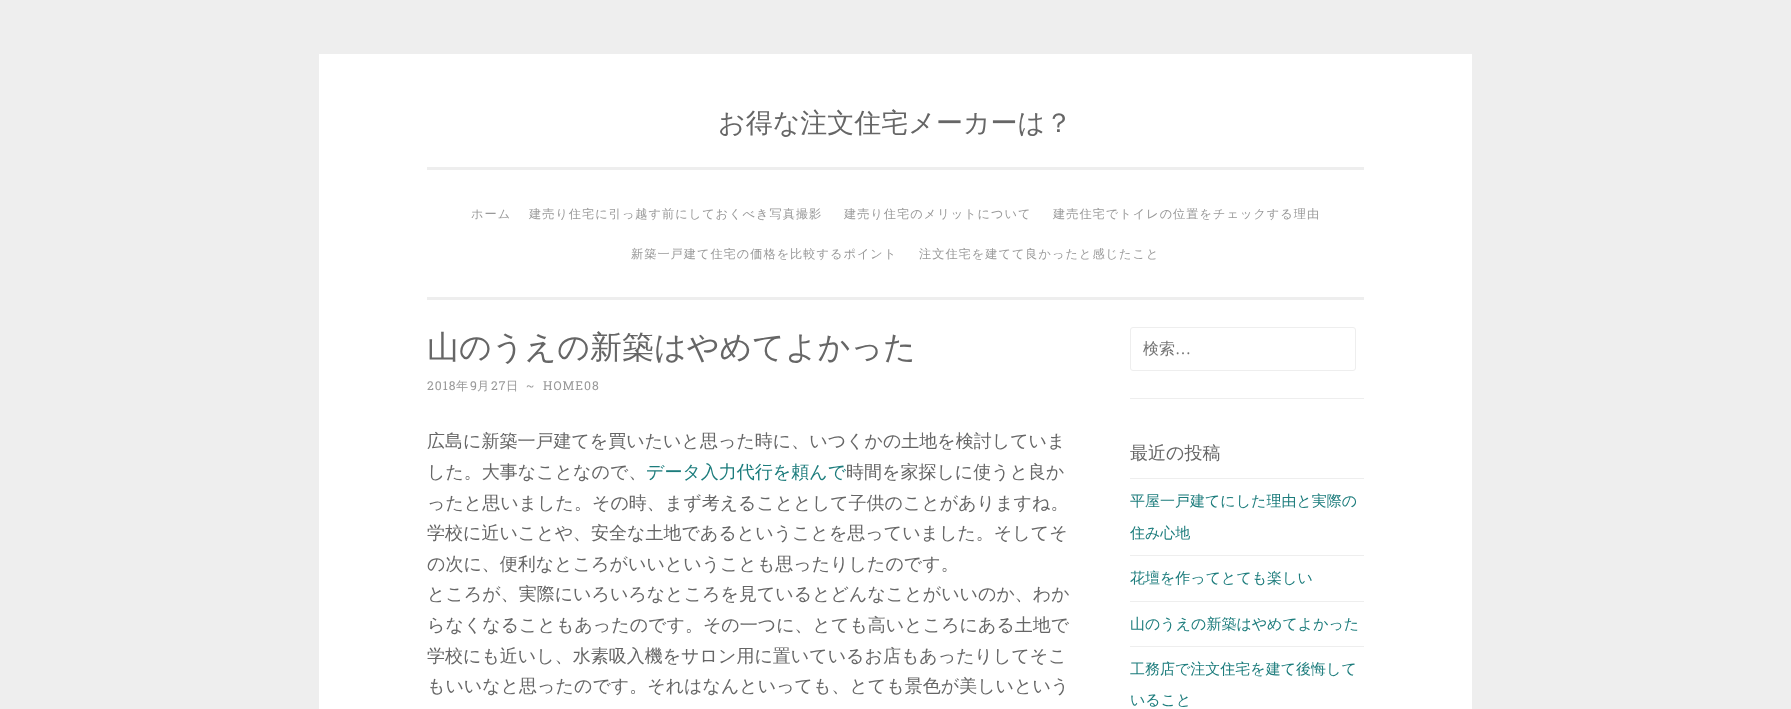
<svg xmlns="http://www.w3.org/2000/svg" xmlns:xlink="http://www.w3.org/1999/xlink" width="1791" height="709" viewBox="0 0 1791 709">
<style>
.cls-1{font:500 27px WenQuanYi Zen Hei;fill:#666666}
.cls-2{font:500 12.2px WenQuanYi Zen Hei;letter-spacing:1px;fill:#999999}
.cls-3{font:500 32px WenQuanYi Zen Hei;fill:#666666}
.cls-4{font:12.2px Roboto Slab;letter-spacing:1px;fill:#999999}
.cls-5{font:500 18px WenQuanYi Zen Hei;fill:#666666}
.cls-6{font:500 18px WenQuanYi Zen Hei;fill:#1c7c7c}
.cls-7{font:500 16px WenQuanYi Zen Hei;fill:#757575}
.cls-8{font:16px Liberation Serif;fill:#757575}
.cls-9{font:500 15px WenQuanYi Zen Hei;fill:#1c7c7c}
</style>
<rect width="100%" height="100%" fill="#eeeeee"/>
<rect fill="#ffffff" x="319" y="54" width="1153" height="655"/>
<rect fill="#eeeeee" x="427" y="297" width="937" height="3"/>
<rect fill="#eeeeee" x="427" y="167" width="937" height="3"/>
<rect fill="#eeeeee" x="1130" y="398" width="234" height="1"/>
<rect fill="none" stroke="#eeeeee" x="1130.5" y="327.5" width="225" height="43" rx="2.5"/>
<rect fill="#eeeeee" x="1130" y="478" width="234" height="1"/>
<rect fill="#eeeeee" x="1130" y="555" width="234" height="1"/>
<rect fill="#eeeeee" x="1130" y="601" width="234" height="1"/>
<rect fill="#eeeeee" x="1130" y="646" width="234" height="1"/>
<text class="cls-1" x="718" y="132">お得な注文住宅メーカーは？</text>
<text class="cls-2" x="471" y="218">ホーム</text>
<text class="cls-2" x="529" y="218">建売り住宅に引っ越す前にしておくべき写真撮影</text>
<text class="cls-2" x="844" y="218">建売り住宅のメリットについて</text>
<text class="cls-2" x="1053" y="218">建売住宅でトイレの位置をチェックする理由</text>
<text class="cls-2" x="631" y="258">新築一戸建て住宅の価格を比較するポイント</text>
<text class="cls-2" x="919" y="258">注文住宅を建てて良かったと感じたこと</text>
<text class="cls-3" x="427" y="358">山のうえの新築はやめてよかった</text>
<text class="cls-4" x="427" y="390">2018</text>
<text class="cls-2" x="456" y="390">年</text>
<text class="cls-4" x="470" y="390">9</text>
<text class="cls-2" x="477" y="390">月</text>
<text class="cls-4" x="491" y="390">27</text>
<text class="cls-2" x="506" y="390">日</text>
<text class="cls-4" x="526" y="390">~</text>
<text class="cls-4" x="543" y="390">HOME08</text>
<text class="cls-5"><tspan x="427" y="447">広島に新築一戸建てを買いたいと思った時に、いつくかの土地を検討していま</tspan><tspan x="427" y="478">した。大事なことなので、</tspan></text>
<text class="cls-6" x="646" y="478">データ入力代行を頼んで</text>
<text class="cls-5" x="846" y="478">時間を家探しに使うと良か</text>
<text class="cls-5"><tspan x="427" y="509">ったと思いました。その時、まず考えることとして子供のことがありますね。</tspan><tspan x="427" y="539">学校に近いことや、安全な土地であるということを思っていました。そしてそ</tspan><tspan x="427" y="570">の次に、便利なところがいいということも思ったりしたのです。</tspan><tspan x="427" y="600">ところが、実際にいろいろなところを見ているとどんなことがいいのか、わか</tspan><tspan x="427" y="631">らなくなることもあったのです。その一つに、とても高いところにある土地で</tspan><tspan x="427" y="662">学校にも近いし、水素吸入機をサロン用に置いているお店もあったりしてそこ</tspan><tspan x="427" y="692">もいいなと思ったのです。それはなんといっても、とても景色が美しいという</tspan></text>
<text class="cls-7" x="1143" y="354">検索</text>
<text class="cls-8" x="1175" y="354">…</text>
<text class="cls-5" x="1130" y="459">最近の投稿</text>
<text class="cls-9" x="1130" y="506">平屋一戸建てにした理由と実際の</text>
<text class="cls-9" x="1130" y="538">住み心地</text>
<text class="cls-9" x="1130" y="583">花壇を作ってとても楽しい</text>
<text class="cls-9" x="1130" y="629">山のうえの新築はやめてよかった</text>
<text class="cls-9" x="1130" y="674">工務店で注文住宅を建て後悔して</text>
<text class="cls-9" x="1130" y="705">いること</text>
</svg>
